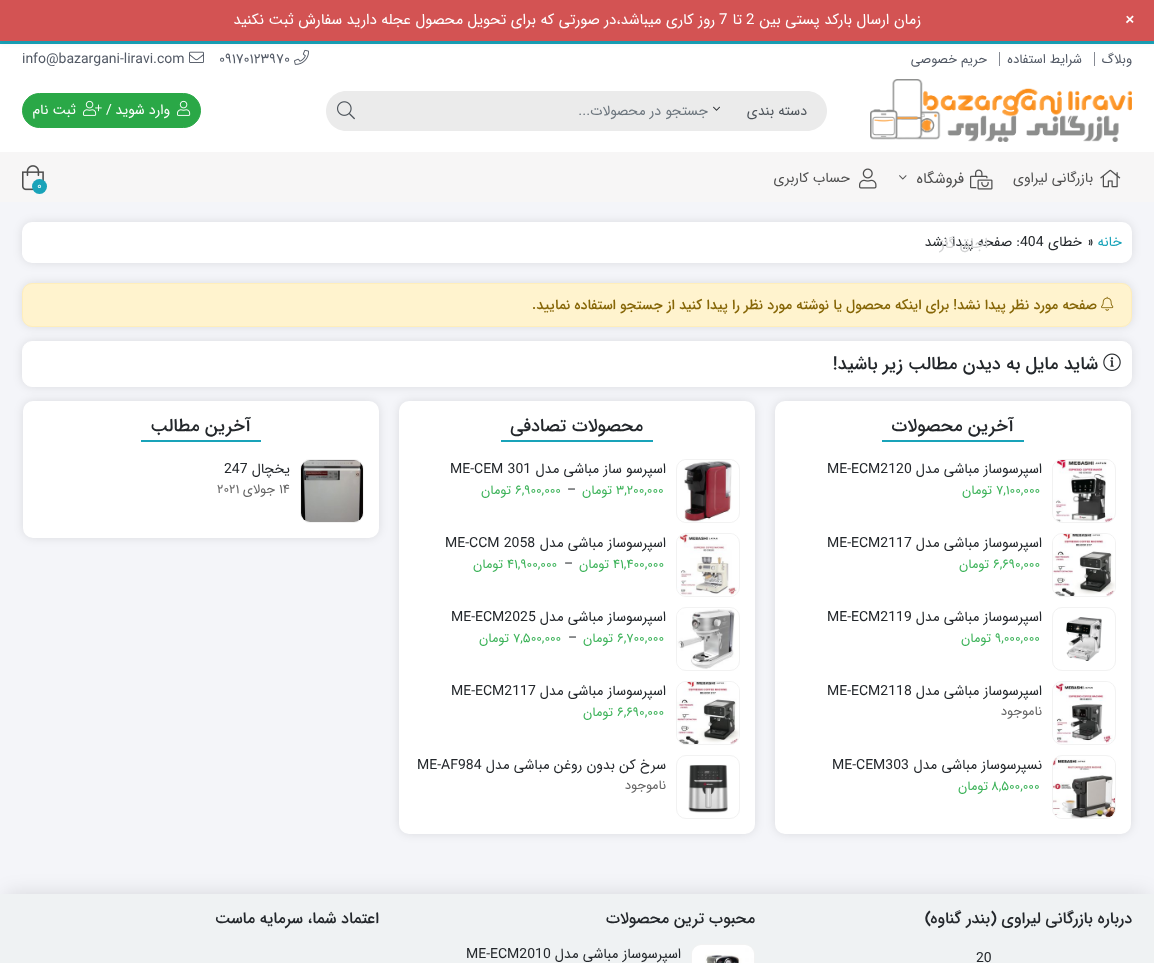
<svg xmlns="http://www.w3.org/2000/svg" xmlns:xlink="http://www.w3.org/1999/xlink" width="1154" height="963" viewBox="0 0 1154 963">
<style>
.cls-1{font:18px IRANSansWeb;fill:#ffffff}
.cls-2{font:15px IRANSansWeb;direction:rtl;fill:#ffffff}
.cls-3{font:15px IRANSansWeb;fill:#ffffff}
.cls-4{font:13px IRANSansWeb;direction:rtl;fill:#525965}
.cls-5{font:14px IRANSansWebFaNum;fill:#525965}
.cls-6{font:14px IRANSansWeb;direction:rtl;fill:#4b5259}
.cls-7{font:14px IRANSansWeb;direction:rtl;fill:#6d767e}
.cls-8{font:14px IRANSansWeb;direction:rtl;fill:#ffffff}
.cls-9{font:14px IRANSansWeb;fill:#ffffff}
.cls-10{font:14px IRANSansWeb;direction:rtl;fill:#4f4f4f}
.cls-11{font:15px IRANSansWeb;direction:rtl;fill:#4f4f4f}
.cls-12{font:11px IRANSansWebFaNum;fill:#ffffff}
.cls-13{font:14px IRANSansWeb;direction:rtl;fill:#19a3b9}
.cls-14{font:14px IRANSansWeb;fill:#23272b}
.cls-15{font:14px IRANSansWeb;direction:rtl;fill:#23272b}
.cls-16{font:15px IRANSansWeb;direction:rtl;fill:#d1d2d3}
.cls-17{font:500 14px IRANSansWeb;direction:rtl;fill:#866607}
.cls-18{font:500 18px IRANSansWeb;direction:rtl;fill:#23272b}
.cls-19{font:13px IRANSansWebFaNum;fill:#3bb258}
.cls-20{font:13px IRANSansWebFaNum;direction:rtl;fill:#3bb258}
.cls-21{font:13px IRANSansWeb;direction:rtl;fill:#636363}
.cls-22{font:13px IRANSansWebFaNum;fill:#636363}
.cls-23{font:13px IRANSansWebFaNum;direction:rtl;fill:#636363}
.cls-24{font:500 16px IRANSansWeb;direction:rtl;fill:#23272b}
</style>
<rect width="100%" height="100%" fill="#f4f5f9"/>
<rect fill="#ffffff" x="0" y="44" width="1154" height="108"/>
<rect fill="#19a3b9" x="0" y="41" width="1154" height="3"/>
<image xlink:href="image0.png" x="294" y="49" width="15" height="16"/>
<rect fill="#030303" fill-opacity="0.05" filter="blur(2px)" x="0" y="3" width="1154" height="41"/>
<rect fill="#d35353" x="0" y="0" width="1154" height="41"/>
<rect fill="#868a93" x="1094" y="52" width="1" height="14"/>
<rect fill="#868a93" x="999" y="52" width="1" height="14"/>
<image xlink:href="image1.png" x="189" y="51" width="15" height="12"/>
<image xlink:href="image2.png" x="870" y="79" width="262" height="63"/>
<path fill="#ebebeb" d="M713 91H807C818 91 827 100 827 111C827 122 818 131 807 131H713Z"/>
<image xlink:href="image3.png" x="713" y="106" width="7" height="5"/>
<rect fill="#ebebeb" x="361" y="91" width="352" height="40"/>
<path fill="#ebebeb" d="M346 91H361V131H346C335 131 326 122 326 111C326 100 335 91 346 91Z"/>
<image xlink:href="image4.png" x="337" y="101" width="18" height="19"/>
<rect fill="#2aa847" stroke="#2aa847" x="22.5" y="93.5" width="178" height="34" rx="17"/>
<image xlink:href="image5.png" x="177" y="100" width="14" height="16"/>
<image xlink:href="image6.png" x="83" y="100" width="19" height="16"/>
<rect fill="#f7f6f6" x="0" y="152" width="1154" height="50"/>
<image xlink:href="image7.png" x="1100" y="169" width="21" height="19"/>
<image xlink:href="image8.png" x="970" y="169" width="23" height="21"/>
<image xlink:href="image9.png" x="899" y="175" width="8" height="5"/>
<image xlink:href="image10.png" x="859" y="168" width="18" height="21"/>
<image xlink:href="image11.png" x="22" y="165" width="22" height="26"/>
<circle fill="#19a3b9" cx="39.5" cy="186.5" r="7.5"/>
<rect fill="#030303" fill-opacity="0.1" filter="blur(5px)" x="22" y="222" width="1110" height="41" rx="10"/>
<rect fill="#ffffff" x="22" y="222" width="1110" height="41" rx="10"/>
<rect fill="#030303" fill-opacity="0.1" filter="blur(5px)" x="22" y="283" width="1110" height="44" rx="10"/>
<rect fill="#fff3ce" stroke="#ffeebb" x="22.5" y="283.5" width="1109" height="43" rx="9.5"/>
<image xlink:href="image12.png" x="1101" y="296" width="13" height="15"/>
<rect fill="#030303" fill-opacity="0.1" filter="blur(5px)" x="22" y="341" width="1110" height="46" rx="10"/>
<rect fill="#ffffff" stroke="#ffffff" x="22.5" y="341.5" width="1109" height="45" rx="9.5"/>
<image xlink:href="image13.png" x="1103" y="353" width="18" height="18"/>
<rect fill="#030303" fill-opacity="0.1" filter="blur(5px)" x="775" y="401" width="356" height="433" rx="10"/>
<rect fill="#ffffff" x="775" y="401" width="356" height="433" rx="10"/>
<rect fill="#19a3b9" x="882" y="440" width="142" height="2"/>
<rect fill="none" stroke="#f2f2f2" x="1052.5" y="459.5" width="63" height="63" rx="9.5"/>
<image xlink:href="image14.png" x="1053" y="460" width="60" height="62"/>
<rect fill="none" stroke="#f2f2f2" x="1052.5" y="533.5" width="63" height="63" rx="9.5"/>
<image xlink:href="image15.png" x="1053" y="534" width="62" height="62"/>
<rect fill="none" stroke="#f2f2f2" x="1052.5" y="607.5" width="63" height="63" rx="9.5"/>
<image xlink:href="image16.png" x="1066" y="617" width="36" height="44"/>
<rect fill="none" stroke="#f2f2f2" x="1052.5" y="681.5" width="63" height="63" rx="9.5"/>
<image xlink:href="image17.png" x="1053" y="682" width="60" height="62"/>
<rect fill="none" stroke="#f2f2f2" x="1052.5" y="755.5" width="63" height="63" rx="9.5"/>
<image xlink:href="image18.png" x="1053" y="757" width="62" height="61"/>
<rect fill="#030303" fill-opacity="0.1" filter="blur(5px)" x="399" y="401" width="356" height="433" rx="10"/>
<rect fill="#ffffff" x="399" y="401" width="356" height="433" rx="10"/>
<rect fill="#19a3b9" x="501" y="440" width="152" height="2"/>
<rect fill="none" stroke="#f2f2f2" x="676.5" y="459.5" width="63" height="63" rx="9.5"/>
<image xlink:href="image19.png" x="684" y="460" width="48" height="62"/>
<rect fill="none" stroke="#f2f2f2" x="676.5" y="533.5" width="63" height="63" rx="9.5"/>
<image xlink:href="image20.png" x="677" y="534" width="60" height="62"/>
<rect fill="none" stroke="#f2f2f2" x="676.5" y="607.5" width="63" height="63" rx="9.5"/>
<image xlink:href="image21.png" x="677" y="609" width="58" height="60"/>
<rect fill="none" stroke="#f2f2f2" x="676.5" y="681.5" width="63" height="63" rx="9.5"/>
<image xlink:href="image22.png" x="677" y="682" width="62" height="62"/>
<rect fill="none" stroke="#f2f2f2" x="676.5" y="755.5" width="63" height="63" rx="9.5"/>
<image xlink:href="image23.png" x="688" y="764" width="40" height="49"/>
<rect fill="#030303" fill-opacity="0.1" filter="blur(5px)" x="23" y="401" width="356" height="137" rx="10"/>
<rect fill="#ffffff" x="23" y="401" width="356" height="137" rx="10"/>
<rect fill="#19a3b9" x="141" y="440" width="120" height="2"/>
<rect fill="none" stroke="#f2f2f2" x="300.5" y="459.5" width="63" height="63" rx="9.5"/>
<image xlink:href="image24.png" x="301" y="460" width="62" height="62"/>
<rect fill="#030303" fill-opacity="0.12" filter="blur(10px)" x="6" y="894" width="1142" height="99"/>
<rect fill="#eff2f3" x="0" y="894" width="1154" height="69"/>
<rect fill="none" stroke="#f2f2f2" x="691.5" y="944.5" width="63" height="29" rx="9.5"/>
<image xlink:href="image25.png" x="692" y="945" width="62" height="18"/>
<text class="cls-1" x="1122" y="20" transform="rotate(45 1122 20)">+</text>
<text class="cls-2" x="921" y="24">زمان ارسال بارکد پستی بین</text>
<text class="cls-3" x="746" y="24">2</text>
<text class="cls-2" x="742" y="24">تا</text>
<text class="cls-3" x="719" y="24">7</text>
<text class="cls-2" x="715" y="24">روز کاری میباشد،در صورتی که برای تحویل محصول عجله دارید سفارش ثبت نکنید</text>
<text class="cls-4" x="1132" y="63">وبلاگ</text>
<text class="cls-4" x="1082" y="63">شرایط استفاده</text>
<text class="cls-4" x="987" y="63">حریم خصوصی</text>
<text class="cls-5" x="219" y="63">09170123970</text>
<text class="cls-5" x="22" y="63">info@bazargani-liravi.com</text>
<text class="cls-6" x="807" y="115">دسته بندی</text>
<text class="cls-7" x="708" y="115">جستجو در محصولات...</text>
<text class="cls-8" x="170" y="114">وارد شوید</text>
<text class="cls-9" x="106" y="114">/</text>
<text class="cls-8" x="76" y="114">ثبت نام</text>
<text class="cls-10" x="1093" y="182">بازرگانی لیراوی</text>
<text class="cls-11" x="964" y="183">فروشگاه</text>
<text class="cls-10" x="850" y="182">حساب کاربری</text>
<text class="cls-12" x="37" y="189">0</text>
<text class="cls-13" x="1122" y="246">خانه</text>
<text class="cls-14" x="1087" y="246">»</text>
<text class="cls-15" x="1082" y="246">خطای</text>
<text class="cls-14" x="1020" y="246">404</text>
<text class="cls-15" x="1020" y="246">: صفحه پیدا نشد</text>
<text class="cls-16" x="988" y="248">اجاق گاز</text>
<text class="cls-17" x="1097" y="309">صفحه مورد نظر پیدا نشد! برای اینکه محصول یا نوشته مورد نظر را پیدا کنید از جستجو استفاده نمایید.</text>
<text class="cls-18" x="1098" y="369">شاید مایل به دیدن مطالب زیر باشید!</text>
<text class="cls-18" x="1014" y="431">آخرین محصولات</text>
<text class="cls-15" x="1042" y="473">اسپرسوساز مباشی مدل</text>
<text class="cls-14" x="827" y="473">ME-ECM2120</text>
<text class="cls-19" x="996" y="494">7,100,000</text>
<text class="cls-20" x="992" y="494">تومان</text>
<text class="cls-15" x="1042" y="547">اسپرسوساز مباشی مدل</text>
<text class="cls-14" x="827" y="547">ME-ECM2117</text>
<text class="cls-19" x="993" y="568">6,690,000</text>
<text class="cls-20" x="989" y="568">تومان</text>
<text class="cls-15" x="1042" y="621">اسپرسوساز مباشی مدل</text>
<text class="cls-14" x="827" y="621">ME-ECM2119</text>
<text class="cls-19" x="995" y="642">9,000,000</text>
<text class="cls-20" x="991" y="642">تومان</text>
<text class="cls-15" x="1042" y="695">اسپرسوساز مباشی مدل</text>
<text class="cls-14" x="827" y="695">ME-ECM2118</text>
<text class="cls-21" x="1042" y="715">ناموجود</text>
<text class="cls-15" x="1042" y="769">نسپرسوساز مباشی مدل</text>
<text class="cls-14" x="832" y="769">ME-CEM303</text>
<text class="cls-19" x="991" y="790">8,500,000</text>
<text class="cls-20" x="988" y="790">تومان</text>
<text class="cls-18" x="643" y="431">محصولات تصادفی</text>
<text class="cls-15" x="666" y="473">اسپرسو ساز مباشی مدل</text>
<text class="cls-14" x="450" y="473">ME-CEM 301</text>
<text class="cls-19" x="616" y="494">3,200,000</text>
<text class="cls-20" x="612" y="494">تومان</text>
<text class="cls-14" x="567" y="494">–</text>
<text class="cls-19" x="515" y="494">6,900,000</text>
<text class="cls-20" x="511" y="494">تومان</text>
<text class="cls-15" x="666" y="547">اسپرسوساز مباشی مدل</text>
<text class="cls-14" x="445" y="547">ME-CCM 2058</text>
<text class="cls-19" x="613" y="568">41,400,000</text>
<text class="cls-20" x="609" y="568">تومان</text>
<text class="cls-14" x="564" y="568">–</text>
<text class="cls-19" x="507" y="568">41,900,000</text>
<text class="cls-20" x="503" y="568">تومان</text>
<text class="cls-15" x="666" y="621">اسپرسوساز مباشی مدل</text>
<text class="cls-14" x="451" y="621">ME-ECM2025</text>
<text class="cls-19" x="617" y="642">6,700,000</text>
<text class="cls-20" x="613" y="642">تومان</text>
<text class="cls-14" x="568" y="642">–</text>
<text class="cls-19" x="513" y="642">7,500,000</text>
<text class="cls-20" x="509" y="642">تومان</text>
<text class="cls-15" x="666" y="695">اسپرسوساز مباشی مدل</text>
<text class="cls-14" x="451" y="695">ME-ECM2117</text>
<text class="cls-19" x="617" y="716">6,690,000</text>
<text class="cls-20" x="613" y="716">تومان</text>
<text class="cls-15" x="666" y="769">سرخ کن بدون روغن مباشی مدل</text>
<text class="cls-14" x="417" y="769">ME-AF984</text>
<text class="cls-21" x="666" y="789">ناموجود</text>
<text class="cls-18" x="251" y="431">آخرین مطالب</text>
<text class="cls-15" x="290" y="473">یخچال</text>
<text class="cls-14" x="224" y="473">247</text>
<text class="cls-22" x="279" y="493">14</text>
<text class="cls-23" x="275" y="493">جولای</text>
<text class="cls-22" x="217" y="493">2021</text>
<text class="cls-24" x="1132" y="923">درباره بازرگانی لیراوی (بندر گناوه)</text>
<text class="cls-14" x="976" y="962">20</text>
<text class="cls-24" x="755" y="923">محبوب ترین محصولات</text>
<text class="cls-15" x="681" y="958">اسپرسوساز مباشی مدل</text>
<text class="cls-14" x="466" y="958">ME-ECM2010</text>
<text class="cls-24" x="379" y="923">اعتماد شما، سرمایه ماست</text>
</svg>
